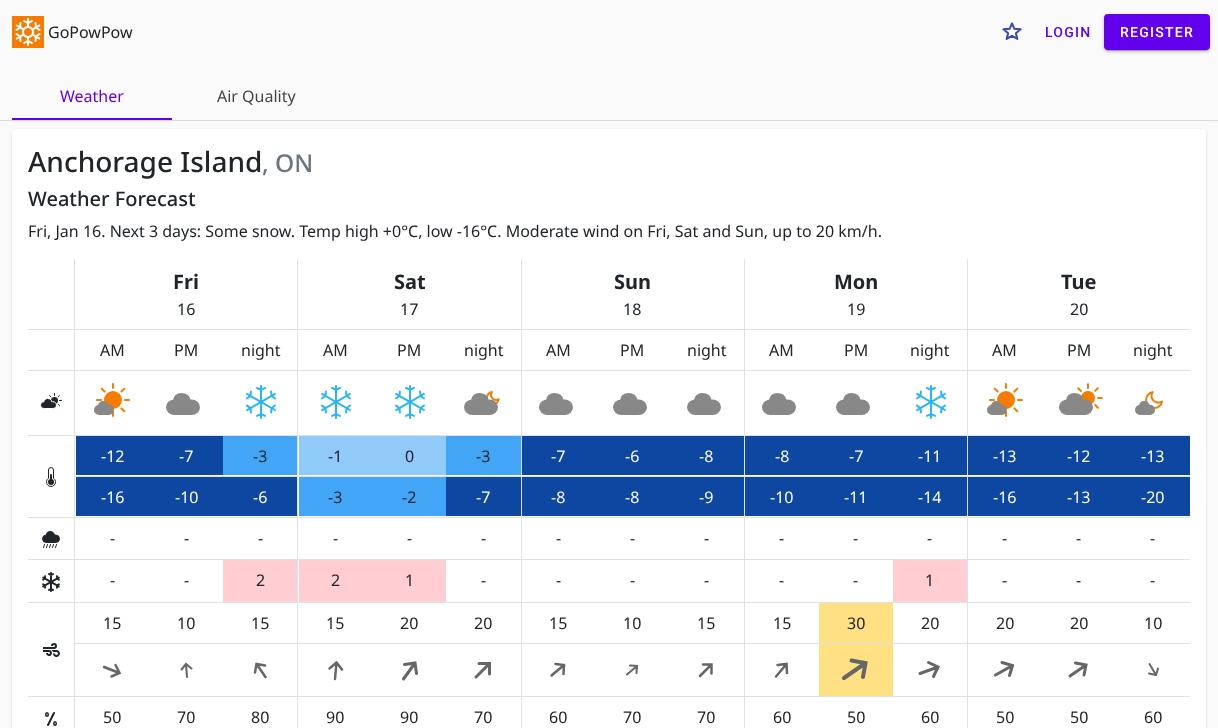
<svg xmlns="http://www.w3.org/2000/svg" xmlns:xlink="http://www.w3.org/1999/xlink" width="1218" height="728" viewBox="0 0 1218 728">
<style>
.cls-1{font:16px Noto Sans;fill:#222222}
.cls-2{font:500 14px Roboto;letter-spacing:1.25px;fill:#6200ee}
.cls-3{font:500 14px Roboto;letter-spacing:1.25px;fill:#ffffff}
.cls-4{font:16px Noto Sans;fill:#6200ee}
.cls-5{font:16px Noto Sans;fill:#444444}
.cls-6{font:500 28px Noto Sans;fill:#212529}
.cls-7{font:500 24.5px Noto Sans;fill:#6c757d}
.cls-8{font:500 20px Noto Sans;fill:#212529}
.cls-9{font:16px Noto Sans;fill:#212529}
.cls-10{font:bold 20px Noto Sans;fill:#212529}
.cls-11{font:16px Noto Sans;fill:#ffffff}
</style>
<rect width="100%" height="100%" fill="#fafafa"/>
<image xlink:href="image0.png" x="12" y="16" width="32" height="32"/>
<image xlink:href="image1.png" x="1002" y="22" width="20" height="18"/>
<rect fill="#000000" fill-opacity="0.12" filter="blur(2.5px)" x="1104" y="15" width="106" height="36" rx="4"/>
<rect fill="#000000" fill-opacity="0.14" filter="blur(1px)" x="1104" y="16" width="106" height="36" rx="4"/>
<rect fill="#000000" fill-opacity="0.2" filter="blur(0.5px)" x="1106" y="19" width="102" height="32" rx="2"/>
<rect fill="#6200ee" x="1104" y="14" width="106" height="36" rx="4"/>
<rect fill="#dbdbdb" x="0" y="120" width="1218" height="1"/>
<rect fill="#6200ee" x="12" y="118" width="160" height="2"/>
<rect fill="#000000" fill-opacity="0.12" filter="blur(1.5px)" x="12" y="130" width="1194" height="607" rx="4"/>
<rect fill="#ffffff" x="12" y="129" width="1194" height="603" rx="4"/>
<rect fill="#dee2e6" x="967" y="696" width="1" height="32"/>
<rect fill="#dee2e6" x="967" y="696" width="223" height="1"/>
<rect fill="#dee2e6" x="967" y="643" width="1" height="54"/>
<rect fill="#dee2e6" x="967" y="643" width="223" height="1"/>
<rect fill="#dee2e6" x="967" y="602" width="1" height="42"/>
<rect fill="#dee2e6" x="967" y="602" width="223" height="1"/>
<rect fill="#dee2e6" x="967" y="559" width="1" height="44"/>
<rect fill="#dee2e6" x="967" y="559" width="223" height="1"/>
<rect fill="#dee2e6" x="967" y="517" width="1" height="43"/>
<rect fill="#dee2e6" x="967" y="517" width="223" height="1"/>
<rect fill="#dee2e6" x="967" y="476" width="1" height="42"/>
<rect fill="#dee2e6" x="967" y="476" width="223" height="1"/>
<rect fill="#dee2e6" x="967" y="435" width="1" height="42"/>
<rect fill="#dee2e6" x="967" y="435" width="223" height="1"/>
<rect fill="#dee2e6" x="967" y="370" width="1" height="66"/>
<rect fill="#dee2e6" x="967" y="370" width="223" height="1"/>
<rect fill="#dee2e6" x="967" y="329" width="1" height="42"/>
<rect fill="#dee2e6" x="967" y="329" width="223" height="1"/>
<rect fill="#dee2e6" x="967" y="259" width="1" height="71"/>
<rect fill="#dee2e6" x="744" y="696" width="1" height="32"/>
<rect fill="#dee2e6" x="744" y="696" width="224" height="1"/>
<rect fill="#dee2e6" x="744" y="643" width="1" height="54"/>
<rect fill="#dee2e6" x="744" y="643" width="224" height="1"/>
<rect fill="#dee2e6" x="744" y="602" width="1" height="42"/>
<rect fill="#dee2e6" x="744" y="602" width="224" height="1"/>
<rect fill="#dee2e6" x="744" y="559" width="1" height="44"/>
<rect fill="#dee2e6" x="744" y="559" width="224" height="1"/>
<rect fill="#dee2e6" x="744" y="517" width="1" height="43"/>
<rect fill="#dee2e6" x="744" y="517" width="224" height="1"/>
<rect fill="#dee2e6" x="744" y="476" width="1" height="42"/>
<rect fill="#dee2e6" x="744" y="476" width="224" height="1"/>
<rect fill="#dee2e6" x="744" y="435" width="1" height="42"/>
<rect fill="#dee2e6" x="744" y="435" width="224" height="1"/>
<rect fill="#dee2e6" x="744" y="370" width="1" height="66"/>
<rect fill="#dee2e6" x="744" y="370" width="224" height="1"/>
<rect fill="#dee2e6" x="744" y="329" width="1" height="42"/>
<rect fill="#dee2e6" x="744" y="329" width="224" height="1"/>
<rect fill="#dee2e6" x="744" y="259" width="1" height="71"/>
<rect fill="#dee2e6" x="521" y="696" width="1" height="32"/>
<rect fill="#dee2e6" x="521" y="696" width="224" height="1"/>
<rect fill="#dee2e6" x="521" y="643" width="1" height="54"/>
<rect fill="#dee2e6" x="521" y="643" width="224" height="1"/>
<rect fill="#dee2e6" x="521" y="602" width="1" height="42"/>
<rect fill="#dee2e6" x="521" y="602" width="224" height="1"/>
<rect fill="#dee2e6" x="521" y="559" width="1" height="44"/>
<rect fill="#dee2e6" x="521" y="559" width="224" height="1"/>
<rect fill="#dee2e6" x="521" y="517" width="1" height="43"/>
<rect fill="#dee2e6" x="521" y="517" width="224" height="1"/>
<rect fill="#dee2e6" x="521" y="476" width="1" height="42"/>
<rect fill="#dee2e6" x="521" y="476" width="224" height="1"/>
<rect fill="#dee2e6" x="521" y="435" width="1" height="42"/>
<rect fill="#dee2e6" x="521" y="435" width="224" height="1"/>
<rect fill="#dee2e6" x="521" y="370" width="1" height="66"/>
<rect fill="#dee2e6" x="521" y="370" width="224" height="1"/>
<rect fill="#dee2e6" x="521" y="329" width="1" height="42"/>
<rect fill="#dee2e6" x="521" y="329" width="224" height="1"/>
<rect fill="#dee2e6" x="521" y="259" width="1" height="71"/>
<rect fill="#dee2e6" x="297" y="696" width="1" height="32"/>
<rect fill="#dee2e6" x="297" y="696" width="225" height="1"/>
<rect fill="#dee2e6" x="297" y="643" width="1" height="54"/>
<rect fill="#dee2e6" x="297" y="643" width="225" height="1"/>
<rect fill="#dee2e6" x="297" y="602" width="1" height="42"/>
<rect fill="#dee2e6" x="297" y="602" width="225" height="1"/>
<rect fill="#dee2e6" x="297" y="559" width="1" height="44"/>
<rect fill="#dee2e6" x="297" y="559" width="225" height="1"/>
<rect fill="#dee2e6" x="297" y="517" width="1" height="43"/>
<rect fill="#dee2e6" x="297" y="517" width="225" height="1"/>
<rect fill="#dee2e6" x="297" y="476" width="1" height="42"/>
<rect fill="#dee2e6" x="297" y="476" width="225" height="1"/>
<rect fill="#dee2e6" x="297" y="435" width="1" height="42"/>
<rect fill="#dee2e6" x="297" y="435" width="225" height="1"/>
<rect fill="#dee2e6" x="297" y="370" width="1" height="66"/>
<rect fill="#dee2e6" x="297" y="370" width="225" height="1"/>
<rect fill="#dee2e6" x="297" y="329" width="1" height="42"/>
<rect fill="#dee2e6" x="297" y="329" width="225" height="1"/>
<rect fill="#dee2e6" x="297" y="259" width="1" height="71"/>
<rect fill="#dee2e6" x="74" y="696" width="1" height="32"/>
<rect fill="#dee2e6" x="74" y="696" width="224" height="1"/>
<rect fill="#dee2e6" x="74" y="643" width="1" height="54"/>
<rect fill="#dee2e6" x="74" y="643" width="224" height="1"/>
<rect fill="#dee2e6" x="74" y="602" width="1" height="42"/>
<rect fill="#dee2e6" x="74" y="602" width="224" height="1"/>
<rect fill="#dee2e6" x="74" y="559" width="1" height="44"/>
<rect fill="#dee2e6" x="74" y="559" width="224" height="1"/>
<rect fill="#dee2e6" x="74" y="517" width="1" height="43"/>
<rect fill="#dee2e6" x="74" y="517" width="224" height="1"/>
<rect fill="#dee2e6" x="74" y="476" width="1" height="42"/>
<rect fill="#dee2e6" x="74" y="476" width="224" height="1"/>
<rect fill="#dee2e6" x="74" y="435" width="1" height="42"/>
<rect fill="#dee2e6" x="74" y="435" width="224" height="1"/>
<rect fill="#dee2e6" x="74" y="370" width="1" height="66"/>
<rect fill="#dee2e6" x="74" y="370" width="224" height="1"/>
<rect fill="#dee2e6" x="74" y="329" width="1" height="42"/>
<rect fill="#dee2e6" x="74" y="329" width="224" height="1"/>
<rect fill="#dee2e6" x="74" y="259" width="1" height="71"/>
<rect fill="#dee2e6" x="28" y="329" width="47" height="1"/>
<rect fill="#dee2e6" x="28" y="370" width="47" height="1"/>
<image xlink:href="image2.png" x="94" y="383" width="36" height="34"/>
<image xlink:href="image3.png" x="320" y="385" width="32" height="34"/>
<image xlink:href="image4.png" x="539" y="393" width="34" height="22"/>
<image xlink:href="image5.png" x="762" y="393" width="34" height="22"/>
<image xlink:href="image6.png" x="987" y="383" width="36" height="34"/>
<image xlink:href="image7.png" x="1059" y="383" width="44" height="32"/>
<image xlink:href="image8.png" x="245" y="385" width="32" height="34"/>
<image xlink:href="image3.png" x="394" y="385" width="32" height="34"/>
<image xlink:href="image3.png" x="915" y="385" width="32" height="34"/>
<rect fill="#dee2e6" x="28" y="435" width="47" height="1"/>
<image xlink:href="image9.png" x="40" y="393" width="22" height="16"/>
<image xlink:href="image4.png" x="166" y="393" width="34" height="22"/>
<image xlink:href="image10.png" x="464" y="391" width="36" height="24"/>
<image xlink:href="image4.png" x="687" y="393" width="34" height="22"/>
<image xlink:href="image11.png" x="1135" y="391" width="28" height="24"/>
<image xlink:href="image4.png" x="613" y="393" width="34" height="22"/>
<image xlink:href="image4.png" x="836" y="393" width="34" height="22"/>
<rect fill="#0d47a1" x="76" y="436" width="147" height="39"/>
<rect fill="#42a5f5" x="223" y="436" width="74" height="39"/>
<rect fill="#90caf9" x="299" y="436" width="147" height="39"/>
<rect fill="#42a5f5" x="446" y="436" width="75" height="39"/>
<rect fill="#0d47a1" x="522" y="436" width="222" height="39"/>
<rect fill="#0d47a1" x="745" y="436" width="222" height="39"/>
<rect fill="#0d47a1" x="968" y="436" width="222" height="39"/>
<rect fill="#dee2e6" x="28" y="517" width="47" height="1"/>
<image xlink:href="image12.png" x="46" y="467" width="10" height="20"/>
<rect fill="#0d47a1" x="76" y="477" width="221" height="39"/>
<rect fill="#42a5f5" x="299" y="477" width="147" height="39"/>
<rect fill="#0d47a1" x="446" y="477" width="75" height="39"/>
<rect fill="#0d47a1" x="522" y="477" width="222" height="39"/>
<rect fill="#0d47a1" x="745" y="477" width="222" height="39"/>
<rect fill="#0d47a1" x="968" y="477" width="222" height="39"/>
<rect fill="#dee2e6" x="28" y="559" width="47" height="1"/>
<image xlink:href="image13.png" x="42" y="531" width="18" height="17"/>
<rect fill="#dee2e6" x="28" y="602" width="47" height="1"/>
<image xlink:href="image14.png" x="42" y="572" width="18" height="20"/>
<rect fill="#ffcdd2" x="223" y="560" width="74" height="42"/>
<rect fill="#ffcdd2" x="299" y="560" width="147" height="42"/>
<rect fill="#ffcdd2" x="893" y="560" width="74" height="42"/>
<rect fill="#ffe082" x="819" y="603" width="74" height="40"/>
<rect fill="#dee2e6" x="28" y="696" width="47" height="1"/>
<image xlink:href="image15.png" x="43" y="643" width="17" height="14"/>
<path fill="none" stroke="#666666" stroke-width="2.5" stroke-linecap="round" d="M104 667L119.5 673M111.5 676.5L119.5 673L115.5 665"/>
<path fill="none" stroke="#666666" stroke-width="2.5" stroke-linecap="round" d="M335 679L336.5 662.5M342 669.5L336.5 662.5L329.5 668.5"/>
<path fill="none" stroke="#666666" stroke-width="3" stroke-linecap="round" d="M403.5 679L415 663M416.5 673.5L415 663L404.5 664.5"/>
<path fill="none" stroke="#666666" stroke-width="2.5" stroke-linecap="round" d="M551.5 675.5L564 665M563.5 674L564 665L555.5 664"/>
<path fill="none" stroke="#666666" stroke-width="2.5" stroke-linecap="round" d="M776 676.5L786.5 664M787 673L786.5 664L777.5 665"/>
<rect fill="#ffe082" x="819" y="644" width="74" height="52"/>
<path fill="none" stroke="#666666" stroke-width="4" stroke-linecap="round" d="M844 678L865.5 663M863 677L865.5 663L851.5 660.5"/>
<path fill="none" stroke="#666666" stroke-width="3" stroke-linecap="round" d="M995.5 675L1012.5 665.5M1009.5 675.5L1012.5 665.5L1002 662.5"/>
<path fill="none" stroke="#666666" stroke-width="2.5" stroke-linecap="round" d="M265.5 677L256.5 664M265 665.5L256.5 664L255 672.5"/>
<path fill="none" stroke="#666666" stroke-width="3" stroke-linecap="round" d="M920 673.5L938 667M933.5 676.5L938 667L928.5 662.5"/>
<path fill="none" stroke="#666666" stroke-width="3" stroke-linecap="round" d="M1070 676L1086 665M1084 675L1086 665L1075.5 663"/>
<path fill="none" stroke="#666666" stroke-width="2" stroke-linecap="round" d="M187 677L186 664M191.5 668.5L186 664L181.5 669.5"/>
<path fill="none" stroke="#666666" stroke-width="3" stroke-linecap="round" d="M476 677L489.5 663.5M489.5 674V663.5H479"/>
<path fill="none" stroke="#666666" stroke-width="2.5" stroke-linecap="round" d="M700 676L711.5 664.5M711.5 673.5V664.5H703"/>
<path fill="none" stroke="#666666" stroke-width="2" stroke-linecap="round" d="M1149.5 664L1156 675M1149 673.5L1156 675L1158 668.5"/>
<path fill="none" stroke="#666666" stroke-width="2" stroke-linecap="round" d="M627 674.5L637 666M636.5 673L637 666L630 665.5"/>
<image xlink:href="image16.png" x="45" y="712" width="12" height="14"/>
<text class="cls-1" x="48" y="38">GoPowPow</text>
<text class="cls-2" x="1045" y="37">LOGIN</text>
<text class="cls-3" x="1120" y="37">REGISTER</text>
<text class="cls-4" x="60" y="102">Weather</text>
<text class="cls-5" x="217" y="102">Air Quality</text>
<text class="cls-6" x="28" y="172">Anchorage Island</text>
<text class="cls-7" x="262" y="172">, ON</text>
<text class="cls-8" x="28" y="206">Weather Forecast</text>
<text class="cls-9" x="28" y="237">Fri, Jan 16. Next 3 days: Some snow. Temp high +0°C, low -16°C. Moderate wind on Fri, Sat and Sun, up to 20 km/h.</text>
<text class="cls-10" x="173" y="289">Fri</text>
<text class="cls-9" x="177" y="315">16</text>
<text class="cls-10" x="394" y="289">Sat</text>
<text class="cls-9" x="400" y="315">17</text>
<text class="cls-10" x="614" y="289">Sun</text>
<text class="cls-9" x="623" y="315">18</text>
<text class="cls-10" x="834" y="289">Mon</text>
<text class="cls-9" x="847" y="315">19</text>
<text class="cls-10" x="1061" y="289">Tue</text>
<text class="cls-9" x="1070" y="315">20</text>
<text class="cls-9" x="100" y="356">AM</text>
<text class="cls-9" x="174" y="356">PM</text>
<text class="cls-9" x="241" y="356">night</text>
<text class="cls-9" x="323" y="356">AM</text>
<text class="cls-9" x="397" y="356">PM</text>
<text class="cls-9" x="464" y="356">night</text>
<text class="cls-9" x="546" y="356">AM</text>
<text class="cls-9" x="620" y="356">PM</text>
<text class="cls-9" x="687" y="356">night</text>
<text class="cls-9" x="769" y="356">AM</text>
<text class="cls-9" x="844" y="356">PM</text>
<text class="cls-9" x="910" y="356">night</text>
<text class="cls-9" x="992" y="356">AM</text>
<text class="cls-9" x="1067" y="356">PM</text>
<text class="cls-9" x="1133" y="356">night</text>
<text class="cls-11" x="101" y="462">-12</text>
<text class="cls-11" x="179" y="462">-7</text>
<text class="cls-9" x="253" y="462">-3</text>
<text class="cls-9" x="328" y="462">-1</text>
<text class="cls-9" x="405" y="462">0</text>
<text class="cls-9" x="476" y="462">-3</text>
<text class="cls-11" x="551" y="462">-7</text>
<text class="cls-11" x="625" y="462">-6</text>
<text class="cls-11" x="699" y="462">-8</text>
<text class="cls-11" x="775" y="462">-8</text>
<text class="cls-11" x="849" y="462">-7</text>
<text class="cls-11" x="918" y="462">-11</text>
<text class="cls-11" x="993" y="462">-13</text>
<text class="cls-11" x="1067" y="462">-12</text>
<text class="cls-11" x="1141" y="462">-13</text>
<text class="cls-11" x="101" y="503">-16</text>
<text class="cls-11" x="175" y="503">-10</text>
<text class="cls-11" x="253" y="503">-6</text>
<text class="cls-9" x="328" y="503">-3</text>
<text class="cls-9" x="402" y="503">-2</text>
<text class="cls-11" x="476" y="503">-7</text>
<text class="cls-11" x="551" y="503">-8</text>
<text class="cls-11" x="625" y="503">-8</text>
<text class="cls-11" x="699" y="503">-9</text>
<text class="cls-11" x="770" y="503">-10</text>
<text class="cls-11" x="844" y="503">-11</text>
<text class="cls-11" x="918" y="503">-14</text>
<text class="cls-11" x="993" y="503">-16</text>
<text class="cls-11" x="1067" y="503">-13</text>
<text class="cls-11" x="1141" y="503">-20</text>
<text class="cls-9" x="110" y="544">-</text>
<text class="cls-9" x="184" y="544">-</text>
<text class="cls-9" x="258" y="544">-</text>
<text class="cls-9" x="333" y="544">-</text>
<text class="cls-9" x="407" y="544">-</text>
<text class="cls-9" x="481" y="544">-</text>
<text class="cls-9" x="556" y="544">-</text>
<text class="cls-9" x="630" y="544">-</text>
<text class="cls-9" x="704" y="544">-</text>
<text class="cls-9" x="779" y="544">-</text>
<text class="cls-9" x="853" y="544">-</text>
<text class="cls-9" x="927" y="544">-</text>
<text class="cls-9" x="1002" y="544">-</text>
<text class="cls-9" x="1076" y="544">-</text>
<text class="cls-9" x="1150" y="544">-</text>
<text class="cls-9" x="110" y="586">-</text>
<text class="cls-9" x="184" y="586">-</text>
<text class="cls-9" x="256" y="586">2</text>
<text class="cls-9" x="331" y="586">2</text>
<text class="cls-9" x="405" y="586">1</text>
<text class="cls-9" x="481" y="586">-</text>
<text class="cls-9" x="556" y="586">-</text>
<text class="cls-9" x="630" y="586">-</text>
<text class="cls-9" x="704" y="586">-</text>
<text class="cls-9" x="779" y="586">-</text>
<text class="cls-9" x="853" y="586">-</text>
<text class="cls-9" x="925" y="586">1</text>
<text class="cls-9" x="1002" y="586">-</text>
<text class="cls-9" x="1076" y="586">-</text>
<text class="cls-9" x="1150" y="586">-</text>
<text class="cls-9" x="103" y="629">15</text>
<text class="cls-9" x="177" y="629">10</text>
<text class="cls-9" x="251" y="629">15</text>
<text class="cls-9" x="326" y="629">15</text>
<text class="cls-9" x="400" y="629">20</text>
<text class="cls-9" x="474" y="629">20</text>
<text class="cls-9" x="549" y="629">15</text>
<text class="cls-9" x="623" y="629">10</text>
<text class="cls-9" x="697" y="629">15</text>
<text class="cls-9" x="773" y="629">15</text>
<text class="cls-9" x="847" y="629">30</text>
<text class="cls-9" x="921" y="629">20</text>
<text class="cls-9" x="996" y="629">20</text>
<text class="cls-9" x="1070" y="629">20</text>
<text class="cls-9" x="1144" y="629">10</text>
<text class="cls-9" x="103" y="723">50</text>
<text class="cls-9" x="177" y="723">70</text>
<text class="cls-9" x="251" y="723">80</text>
<text class="cls-9" x="326" y="723">90</text>
<text class="cls-9" x="400" y="723">90</text>
<text class="cls-9" x="474" y="723">70</text>
<text class="cls-9" x="549" y="723">60</text>
<text class="cls-9" x="623" y="723">70</text>
<text class="cls-9" x="697" y="723">70</text>
<text class="cls-9" x="773" y="723">60</text>
<text class="cls-9" x="847" y="723">50</text>
<text class="cls-9" x="921" y="723">60</text>
<text class="cls-9" x="996" y="723">50</text>
<text class="cls-9" x="1070" y="723">50</text>
<text class="cls-9" x="1144" y="723">60</text>
</svg>
